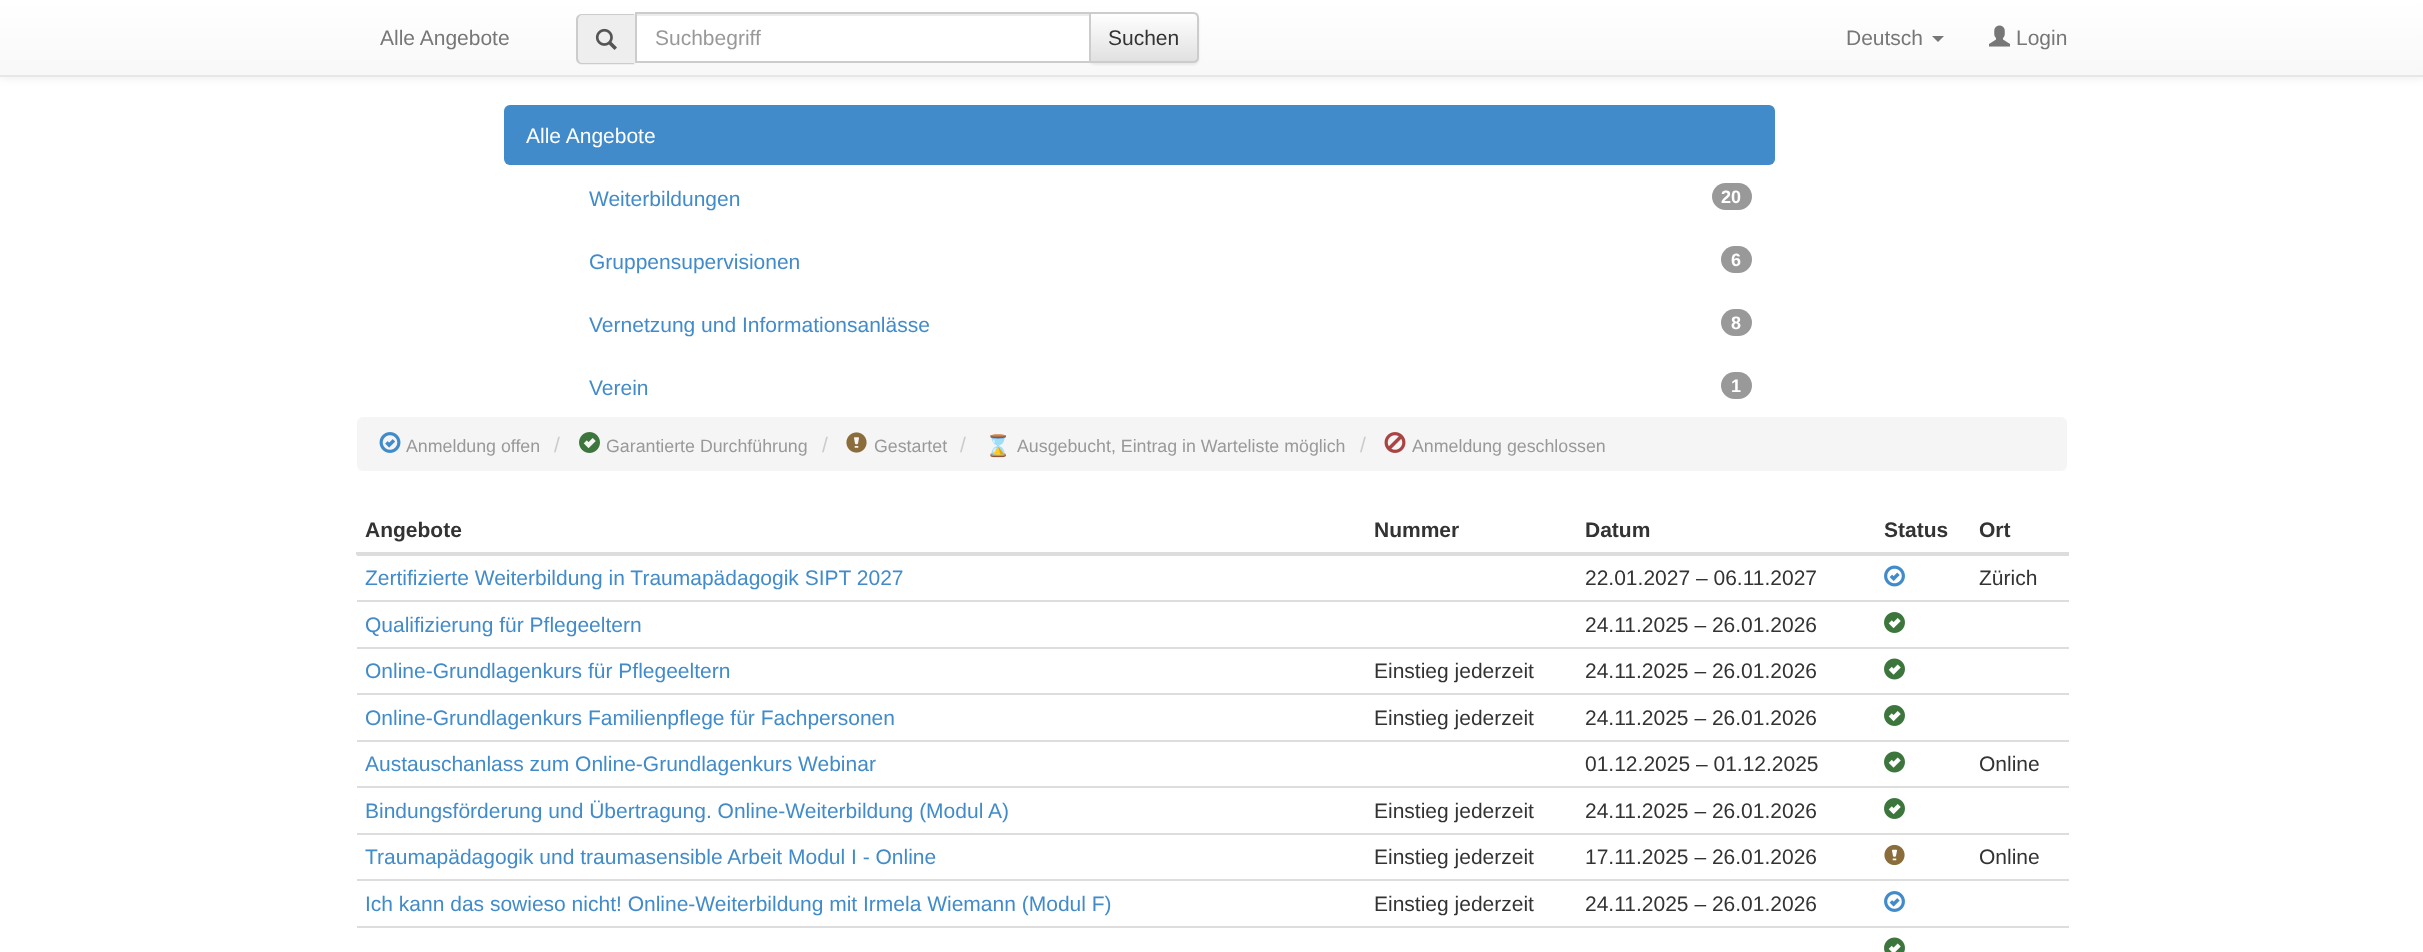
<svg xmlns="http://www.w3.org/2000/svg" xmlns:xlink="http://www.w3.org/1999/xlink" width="2423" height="952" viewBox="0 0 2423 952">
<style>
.cls-1{font:21px Liberation Sans;fill:#777777}
.cls-2{font:21px Liberation Sans;fill:#999999}
.cls-3{font:21px Liberation Sans;fill:#333333}
.cls-4{font:21px Liberation Sans;fill:#ffffff}
.cls-5{font:21px Liberation Sans;fill:#428bca}
.cls-6{font:bold 18px Liberation Sans;fill:#ffffff}
.cls-7{font:17.8px Liberation Sans;fill:#999999}
.cls-8{font:21px Liberation Sans;fill:#cccccc}
.cls-9{font:21px Noto Color Emoji;fill:#31708f}
.cls-10{font:bold 21px Liberation Sans;fill:#333333}
</style>
<defs>
<linearGradient id="g1" gradientUnits="userSpaceOnUse" x1="1212" y1="0" x2="1212" y2="75"><stop offset="0" stop-color="#ffffff"/><stop offset="1" stop-color="#f8f8f8"/></linearGradient>
<clipPath id="clip1"><path d="M1089 12H1193C1196.5 12 1199 14.5 1199 18V57C1199 60.5 1196.5 63 1193 63H1089Z"/></clipPath>
<linearGradient id="g2" gradientUnits="userSpaceOnUse" x1="1144" y1="13" x2="1144" y2="62"><stop offset="0" stop-color="#ffffff"/><stop offset="1" stop-color="#e0e0e0"/></linearGradient>
</defs>
<rect width="100%" height="100%" fill="#ffffff"/>
<rect fill="#000000" fill-opacity="0.07" filter="blur(4px)" x="0" y="2" width="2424" height="76"/>
<rect fill="url(#g1)" x="0" y="0" width="2423" height="75"/>
<rect fill="#e7e7e7" x="0" y="75" width="2423" height="2"/>
<path fill="#eeeeee" d="M582 14H635V65H582C578.5 65 576 62.5 576 59V20C576 16.5 578.5 14 582 14Z"/>
<path fill="#cccccc" fill-rule="evenodd" d="M582 14H634V64H582C579 64 576 62 576 58V20C576 16 579 14 582 14ZM582 15H634V63H582C580 63 578 61 578 58V20C578 17 580 15 582 15Z"/>
<image xlink:href="image0.png" x="595" y="28" width="22" height="22"/>
<rect fill="#000000" fill-opacity="0.07" filter="blur(1px)" x="1089" y="14" width="110" height="51" rx="6"/>
<rect fill="#ffffff" x="637" y="16" width="452" height="45"/>
<rect fill="#ececec" x="636" y="14" width="453" height="2"/>
<g clip-path="url(#clip1)">
<rect fill="url(#g2)" x="1091" y="14" width="108" height="48"/>
</g>
<path fill="none" stroke="#cccccc" stroke-width="2" d="M1090 13H1193C1196 13 1198 15 1198 18V57C1198 60 1196 62 1193 62H1090Z"/>
<rect fill="none" stroke="#cccccc" stroke-width="2" x="636" y="13" width="454" height="49"/>
<path fill="#777777" d="M1932 36H1944L1938 42Z"/>
<image xlink:href="image1.png" x="1989" y="25" width="21" height="22"/>
<rect fill="#428bca" x="504" y="105" width="1271" height="60" rx="6"/>
<rect fill="#999999" x="1712" y="183" width="40" height="27" rx="13.5"/>
<rect fill="#999999" x="1721" y="246" width="31" height="27" rx="13.5"/>
<rect fill="#999999" x="1721" y="309" width="31" height="27" rx="13.5"/>
<rect fill="#999999" x="1721" y="372" width="31" height="27" rx="13.5"/>
<rect fill="#f5f5f5" x="357" y="417" width="1710" height="54" rx="6"/>
<image xlink:href="image2.png" x="379" y="432" width="22" height="21"/>
<image xlink:href="image3.png" x="579" y="432" width="21" height="21"/>
<image xlink:href="image4.png" x="846" y="432" width="21" height="21"/>
<image xlink:href="image5.png" x="1384" y="432" width="22" height="21"/>
<rect fill="#dddddd" x="356" y="552" width="1713" height="3"/>
<image xlink:href="image6.png" x="1884" y="565" width="21" height="22"/>
<rect fill="#dddddd" x="357" y="555" width="1712" height="1"/>
<rect fill="#dddddd" x="357" y="600" width="1712" height="2"/>
<image xlink:href="image7.png" x="1884" y="612" width="21" height="21"/>
<rect fill="#dddddd" x="357" y="647" width="1712" height="2"/>
<image xlink:href="image8.png" x="1884" y="658" width="21" height="22"/>
<rect fill="#dddddd" x="357" y="693" width="1712" height="2"/>
<image xlink:href="image7.png" x="1884" y="705" width="21" height="21"/>
<image xlink:href="image8.png" x="1884" y="751" width="21" height="22"/>
<rect fill="#dddddd" x="357" y="740" width="1712" height="2"/>
<rect fill="#dddddd" x="357" y="786" width="1712" height="2"/>
<image xlink:href="image7.png" x="1884" y="798" width="21" height="21"/>
<image xlink:href="image9.png" x="1884" y="844" width="21" height="22"/>
<rect fill="#dddddd" x="357" y="833" width="1712" height="2"/>
<rect fill="#dddddd" x="357" y="879" width="1712" height="2"/>
<image xlink:href="image10.png" x="1884" y="891" width="21" height="21"/>
<rect fill="#dddddd" x="357" y="926" width="1712" height="2"/>
<image xlink:href="image11.png" x="1884" y="937" width="21" height="15"/>
<text class="cls-1" x="380" y="45">Alle Angebote</text>
<text class="cls-2" x="655" y="45">Suchbegriff</text>
<text class="cls-3" x="1108" y="45">Suchen</text>
<text class="cls-1" x="1846" y="45">Deutsch</text>
<text class="cls-1" x="2016" y="45">Login</text>
<text class="cls-4" x="526" y="143">Alle Angebote</text>
<text class="cls-5" x="589" y="206">Weiterbildungen</text>
<text class="cls-6" x="1721" y="203">20</text>
<text class="cls-5" x="589" y="269">Gruppensupervisionen</text>
<text class="cls-6" x="1731" y="266">6</text>
<text class="cls-5" x="589" y="332">Vernetzung und Informationsanlässe</text>
<text class="cls-6" x="1731" y="329">8</text>
<text class="cls-5" x="589" y="395">Verein</text>
<text class="cls-6" x="1731" y="392">1</text>
<text class="cls-7" x="406" y="452">Anmeldung offen</text>
<text class="cls-8" x="554" y="452">/</text>
<text class="cls-7" x="606" y="452">Garantierte Durchführung</text>
<text class="cls-8" x="822" y="452">/</text>
<text class="cls-7" x="874" y="452">Gestartet</text>
<text class="cls-8" x="960" y="452">/</text>
<text class="cls-9" x="985" y="453">⌛</text>
<text class="cls-7" x="1017" y="452">Ausgebucht, Eintrag in Warteliste möglich</text>
<text class="cls-8" x="1360" y="452">/</text>
<text class="cls-7" x="1412" y="452">Anmeldung geschlossen</text>
<text class="cls-10" x="365" y="537">Angebote</text>
<text class="cls-10" x="1374" y="537">Nummer</text>
<text class="cls-10" x="1585" y="537">Datum</text>
<text class="cls-10" x="1884" y="537">Status</text>
<text class="cls-10" x="1979" y="537">Ort</text>
<text class="cls-5" x="365" y="585">Zertifizierte Weiterbildung in Traumapädagogik SIPT 2027</text>
<text class="cls-3" x="1585" y="585">22.01.2027 – 06.11.2027</text>
<text class="cls-3" x="1979" y="585">Zürich</text>
<text class="cls-5" x="365" y="632">Qualifizierung für Pflegeeltern</text>
<text class="cls-3" x="1585" y="632">24.11.2025 – 26.01.2026</text>
<text class="cls-5" x="365" y="678">Online-Grundlagenkurs für Pflegeeltern</text>
<text class="cls-3" x="1374" y="678">Einstieg jederzeit</text>
<text class="cls-3" x="1585" y="678">24.11.2025 – 26.01.2026</text>
<text class="cls-5" x="365" y="725">Online-Grundlagenkurs Familienpflege für Fachpersonen</text>
<text class="cls-3" x="1374" y="725">Einstieg jederzeit</text>
<text class="cls-3" x="1585" y="725">24.11.2025 – 26.01.2026</text>
<text class="cls-5" x="365" y="771">Austauschanlass zum Online-Grundlagenkurs Webinar</text>
<text class="cls-3" x="1585" y="771">01.12.2025 – 01.12.2025</text>
<text class="cls-3" x="1979" y="771">Online</text>
<text class="cls-5" x="365" y="818">Bindungsförderung und Übertragung. Online-Weiterbildung (Modul A)</text>
<text class="cls-3" x="1374" y="818">Einstieg jederzeit</text>
<text class="cls-3" x="1585" y="818">24.11.2025 – 26.01.2026</text>
<text class="cls-5" x="365" y="864">Traumapädagogik und traumasensible Arbeit Modul I - Online</text>
<text class="cls-3" x="1374" y="864">Einstieg jederzeit</text>
<text class="cls-3" x="1585" y="864">17.11.2025 – 26.01.2026</text>
<text class="cls-3" x="1979" y="864">Online</text>
<text class="cls-5" x="365" y="911">Ich kann das sowieso nicht! Online-Weiterbildung mit Irmela Wiemann (Modul F)</text>
<text class="cls-3" x="1374" y="911">Einstieg jederzeit</text>
<text class="cls-3" x="1585" y="911">24.11.2025 – 26.01.2026</text>
</svg>
